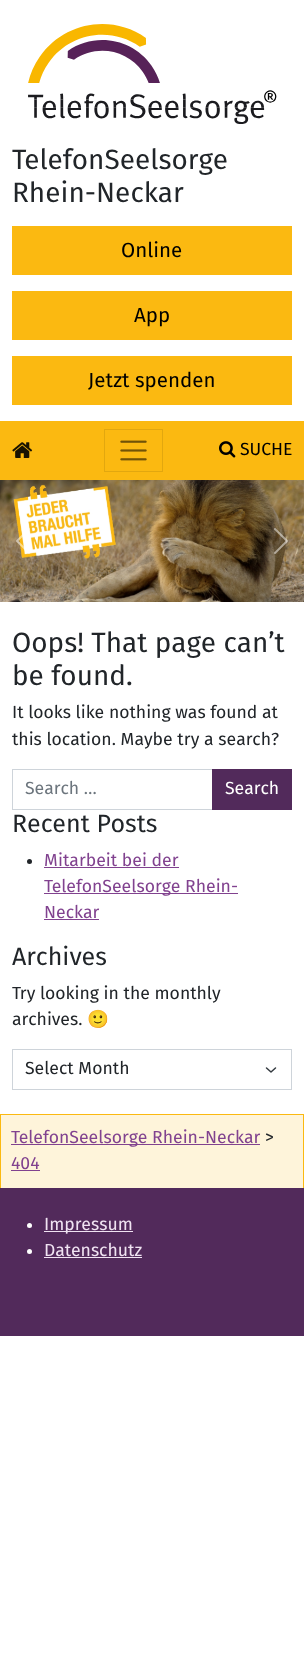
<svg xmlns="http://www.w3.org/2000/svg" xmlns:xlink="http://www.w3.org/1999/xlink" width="304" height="1663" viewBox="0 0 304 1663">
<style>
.cls-1{font:27.9px Fira Sans;fill:#212529}
.cls-2{font:20.5px Fira Sans;fill:#000000}
.cls-3{font:17.6px Fira Sans;fill:#000000}
.cls-4{font:17.6px Fira Sans;fill:#212529}
.cls-5{font:17.6px Fira Sans;fill:#6c757d}
.cls-6{font:17.6px Fira Sans;fill:#ffffff}
.cls-7{font:25px Fira Sans;fill:#212529}
.cls-8{font:17.6px Fira Sans;fill:#81428f}
.cls-9{font:17.6px Noto Color Emoji;fill:#212529}
.cls-10{font:17.6px Fira Sans;fill:#f0e3f2}
</style>
<rect width="100%" height="100%" fill="#ffffff"/>
<image xlink:href="image0.png" x="28" y="24" width="249" height="100"/>
<rect fill="#fbb911" x="12" y="226" width="280" height="49"/>
<rect fill="#fbb911" x="12" y="291" width="280" height="49"/>
<rect fill="#fbb911" x="12" y="356" width="280" height="49"/>
<rect fill="#fbb911" x="0" y="421" width="304" height="59"/>
<image xlink:href="image1.png" x="12" y="442" width="21" height="16"/>
<rect fill="none" stroke="#e2a70f" x="104.5" y="429.5" width="58" height="42"/>
<image xlink:href="image2.png" x="120" y="440" width="27" height="21"/>
<image xlink:href="image3.png" x="219" y="441" width="17" height="17"/>
<image xlink:href="image4.png" x="0" y="480" width="304" height="122"/>
<image xlink:href="image5.png" x="16" y="528" width="14" height="26"/>
<image xlink:href="image6.png" x="274" y="528" width="14" height="26"/>
<rect fill="none" stroke="#ced4da" x="12.5" y="769.5" width="200" height="40"/>
<rect fill="#522a5b" x="212" y="769" width="80" height="41"/>
<circle fill="#212529" cx="29.5" cy="861.5" r="2.5"/>
<rect fill="#81428f" x="44" y="867" width="135" height="1"/>
<rect fill="#81428f" x="44" y="893" width="194" height="1"/>
<rect fill="#81428f" x="44" y="919" width="55" height="1"/>
<path fill="none" stroke="#343a40" stroke-width="1.5" stroke-linecap="round" stroke-linejoin="round" d="M266.5 1068L271 1072L275.5 1068"/>
<rect fill="none" stroke="#ced4da" x="12.5" y="1049.5" width="279" height="40"/>
<rect fill="#fef4da" x="1" y="1115" width="302" height="73"/>
<rect fill="#fbb911" x="0" y="1114" width="304" height="1"/>
<rect fill="#fbb911" x="303" y="1114" width="1" height="74"/>
<rect fill="#fbb911" x="0" y="1114" width="1" height="74"/>
<rect fill="#81428f" x="11" y="1144" width="249" height="1"/>
<rect fill="#81428f" x="11" y="1170" width="29" height="1"/>
<rect fill="#522a5b" x="0" y="1188" width="304" height="148"/>
<circle fill="#ffffff" cx="29.5" cy="1225.5" r="2.5"/>
<rect fill="#f0e3f2" x="44" y="1231" width="89" height="1"/>
<circle fill="#ffffff" cx="29.5" cy="1251.5" r="2.5"/>
<rect fill="#f0e3f2" x="44" y="1257" width="98" height="1"/>
<text class="cls-1"><tspan x="12" y="169">TelefonSeelsorge</tspan><tspan x="12" y="202">Rhein-Neckar</tspan></text>
<text class="cls-2" x="121" y="257">Online</text>
<text class="cls-2" x="134" y="322">App</text>
<text class="cls-2" x="88" y="387">Jetzt spenden</text>
<text class="cls-3" x="240" y="455">SUCHE</text>
<text class="cls-1"><tspan x="12" y="652">Oops! That page can’t</tspan><tspan x="12" y="685">be found.</tspan></text>
<text class="cls-4"><tspan x="12" y="718">It looks like nothing was found at</tspan><tspan x="12" y="745">this location. Maybe try a search?</tspan></text>
<text class="cls-5" x="25" y="794">Search …</text>
<text class="cls-6" x="225" y="794">Search</text>
<text class="cls-7" x="12" y="832">Recent Posts</text>
<text class="cls-8"><tspan x="44" y="866">Mitarbeit bei der</tspan><tspan x="44" y="892">TelefonSeelsorge Rhein-</tspan><tspan x="44" y="918">Neckar</tspan></text>
<text class="cls-7" x="12" y="965">Archives</text>
<text class="cls-4"><tspan x="12" y="999">Try looking in the monthly</tspan><tspan x="12" y="1025">archives.</tspan></text>
<text class="cls-9" x="87" y="1025">🙂</text>
<text class="cls-4" x="25" y="1074">Select Month</text>
<text class="cls-8" x="11" y="1143">TelefonSeelsorge Rhein-Neckar</text>
<text class="cls-4" x="265" y="1143">&gt;</text>
<text class="cls-8" x="11" y="1169">404</text>
<text class="cls-10"><tspan x="44" y="1230">Impressum</tspan><tspan x="44" y="1256">Datenschutz</tspan></text>
</svg>
